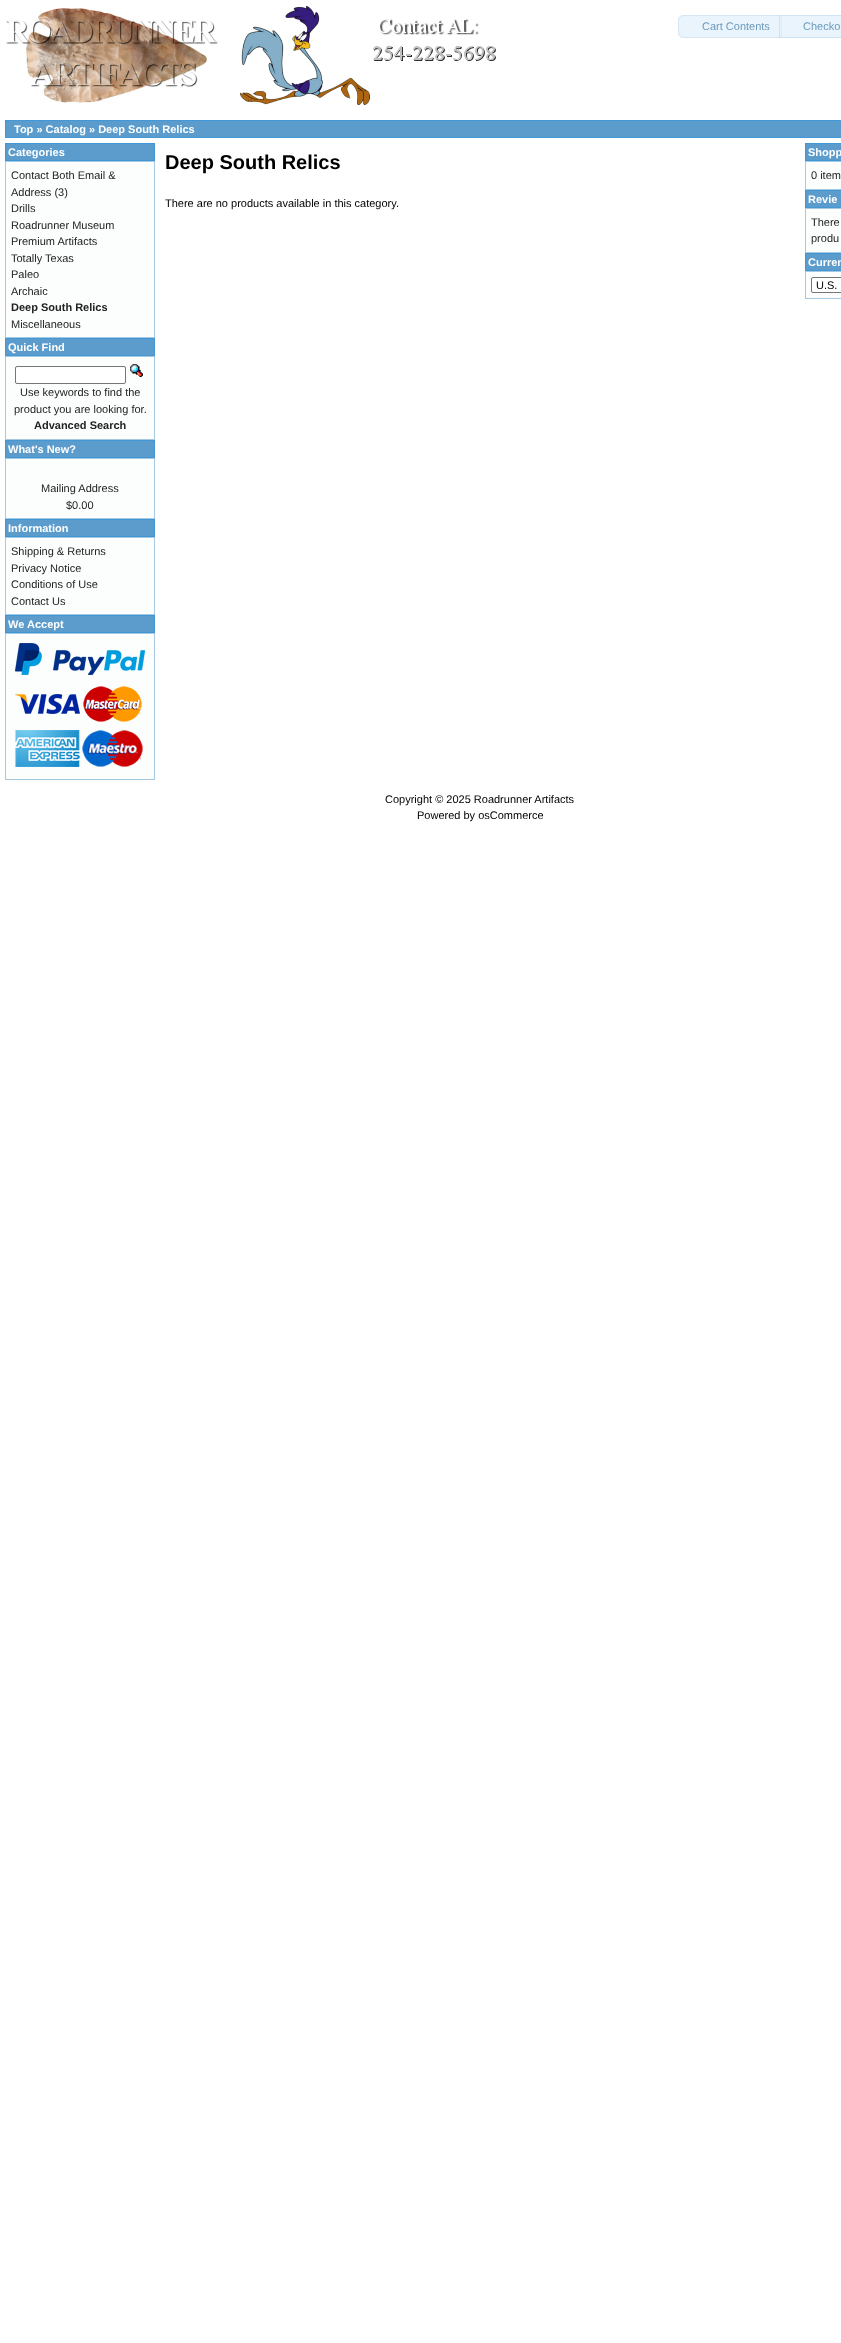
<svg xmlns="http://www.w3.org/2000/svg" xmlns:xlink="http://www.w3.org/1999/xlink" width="841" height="2343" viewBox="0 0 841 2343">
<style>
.cls-1{font:11px Liberation Sans;fill:#6d9abb}
.cls-2{font:bold 11px Liberation Sans;fill:#ffffff}
.cls-3{font:11px Liberation Sans;fill:#222222}
.cls-4{font:bold 11px Liberation Sans;fill:#222222}
.cls-5{font:bold 20px Liberation Sans;fill:#000000}
.cls-6{font:11px Liberation Sans;fill:#000000}
</style>
<rect width="100%" height="100%" fill="#ffffff"/>
<image xlink:href="image0.png" x="6" y="6" width="490" height="99"/>
<path fill="#e9f4fd" stroke="#d6e6f2" d="M683 15.5H781.5V37.5H683C680.5 37.5 678.5 35.5 678.5 33V20C678.5 17.5 680.5 15.5 683 15.5Z"/>
<rect fill="#dfeffc" fill-opacity="0.7" x="779" y="15" width="62" height="23"/>
<rect fill="none" stroke="#c5dbec" stroke-opacity="0.7" x="779.5" y="15.5" width="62" height="22"/>
<rect fill="#5c9ccc" stroke="#4297d7" x="5.5" y="120.5" width="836" height="17"/>
<rect fill="#5c9ccc" stroke="#4297d7" x="5.5" y="143.5" width="149" height="17"/>
<rect fill="#fcfdfd" stroke="#a6c9e2" x="5.5" y="161.5" width="149" height="176"/>
<rect fill="#5c9ccc" stroke="#4297d7" x="5.5" y="338.5" width="149" height="17"/>
<rect fill="#fcfdfd" stroke="#a6c9e2" x="5.5" y="356.5" width="149" height="83"/>
<rect fill="#ffffff" stroke="#767676" x="15.5" y="366.5" width="110" height="17" rx="1.5"/>
<image xlink:href="image1.png" x="130" y="364" width="13" height="13"/>
<rect fill="#5c9ccc" stroke="#4297d7" x="5.5" y="440.5" width="149" height="17"/>
<rect fill="#fcfdfd" stroke="#a6c9e2" x="5.5" y="458.5" width="149" height="60"/>
<rect fill="#5c9ccc" stroke="#4297d7" x="5.5" y="519.5" width="149" height="17"/>
<rect fill="#fcfdfd" stroke="#a6c9e2" x="5.5" y="537.5" width="149" height="77"/>
<rect fill="#5c9ccc" stroke="#4297d7" x="5.5" y="615.5" width="149" height="17"/>
<rect fill="#fcfdfd" stroke="#a6c9e2" x="5.5" y="633.5" width="149" height="146"/>
<image xlink:href="image2.png" x="15" y="643" width="130" height="32"/>
<image xlink:href="image3.png" x="15" y="694" width="65" height="20"/>
<image xlink:href="image4.png" x="83" y="686" width="59" height="36"/>
<image xlink:href="image5.png" x="15" y="730" width="65" height="37"/>
<image xlink:href="image6.png" x="82" y="730" width="61" height="37"/>
<rect fill="#5c9ccc" stroke="#4297d7" x="805.5" y="143.5" width="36" height="17"/>
<rect fill="#fcfdfd" stroke="#a6c9e2" x="805.5" y="161.5" width="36" height="28"/>
<rect fill="#5c9ccc" stroke="#4297d7" x="805.5" y="190.5" width="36" height="17"/>
<rect fill="#fcfdfd" stroke="#a6c9e2" x="805.5" y="208.5" width="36" height="44"/>
<rect fill="#5c9ccc" stroke="#4297d7" x="805.5" y="253.5" width="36" height="17"/>
<rect fill="#fcfdfd" stroke="#a6c9e2" x="805.5" y="271.5" width="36" height="27"/>
<rect fill="#ffffff" stroke="#767676" x="811.5" y="277.5" width="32" height="15" rx="1.5"/>
<text class="cls-1" x="702" y="30">Cart Contents</text>
<text class="cls-1" x="803" y="30">Checko</text>
<text class="cls-2" x="14" y="133">Top » Catalog » Deep South Relics</text>
<text class="cls-2" x="8" y="156">Categories</text>
<text class="cls-3"><tspan x="11" y="179">Contact Both Email &amp;</tspan><tspan x="11" y="196">Address (3)</tspan><tspan x="11" y="212">Drills</tspan><tspan x="11" y="229">Roadrunner Museum</tspan><tspan x="11" y="245">Premium Artifacts</tspan><tspan x="11" y="262">Totally Texas</tspan><tspan x="11" y="278">Paleo</tspan><tspan x="11" y="295">Archaic</tspan></text>
<text class="cls-4" x="11" y="311">Deep South Relics</text>
<text class="cls-3" x="11" y="328">Miscellaneous</text>
<text class="cls-2" x="8" y="351">Quick Find</text>
<text class="cls-3" x="20" y="396">Use keywords to find the</text>
<text class="cls-3" x="14" y="413">product you are looking for.</text>
<text class="cls-4" x="34" y="429">Advanced Search</text>
<text class="cls-2" x="8" y="453">What's New?</text>
<text class="cls-3" x="41" y="492">Mailing Address</text>
<text class="cls-3" x="66" y="509">$0.00</text>
<text class="cls-2" x="8" y="532">Information</text>
<text class="cls-3"><tspan x="11" y="555">Shipping &amp; Returns</tspan><tspan x="11" y="572">Privacy Notice</tspan><tspan x="11" y="588">Conditions of Use</tspan><tspan x="11" y="605">Contact Us</tspan></text>
<text class="cls-2" x="8" y="628">We Accept</text>
<text class="cls-5" x="165" y="169">Deep South Relics</text>
<text class="cls-6" x="165" y="207">There are no products available in this category.</text>
<text class="cls-2" x="808" y="156">Shopp</text>
<text class="cls-3" x="811" y="179">0 item</text>
<text class="cls-2" x="808" y="203">Revie</text>
<text class="cls-3"><tspan x="811" y="226">There</tspan><tspan x="811" y="242">produ</tspan></text>
<text class="cls-2" x="808" y="266">Curren</text>
<text class="cls-6" x="816" y="289">U.S.</text>
<text class="cls-6" x="385" y="803">Copyright © 2025 Roadrunner Artifacts</text>
<text class="cls-6" x="417" y="819">Powered by osCommerce</text>
</svg>
